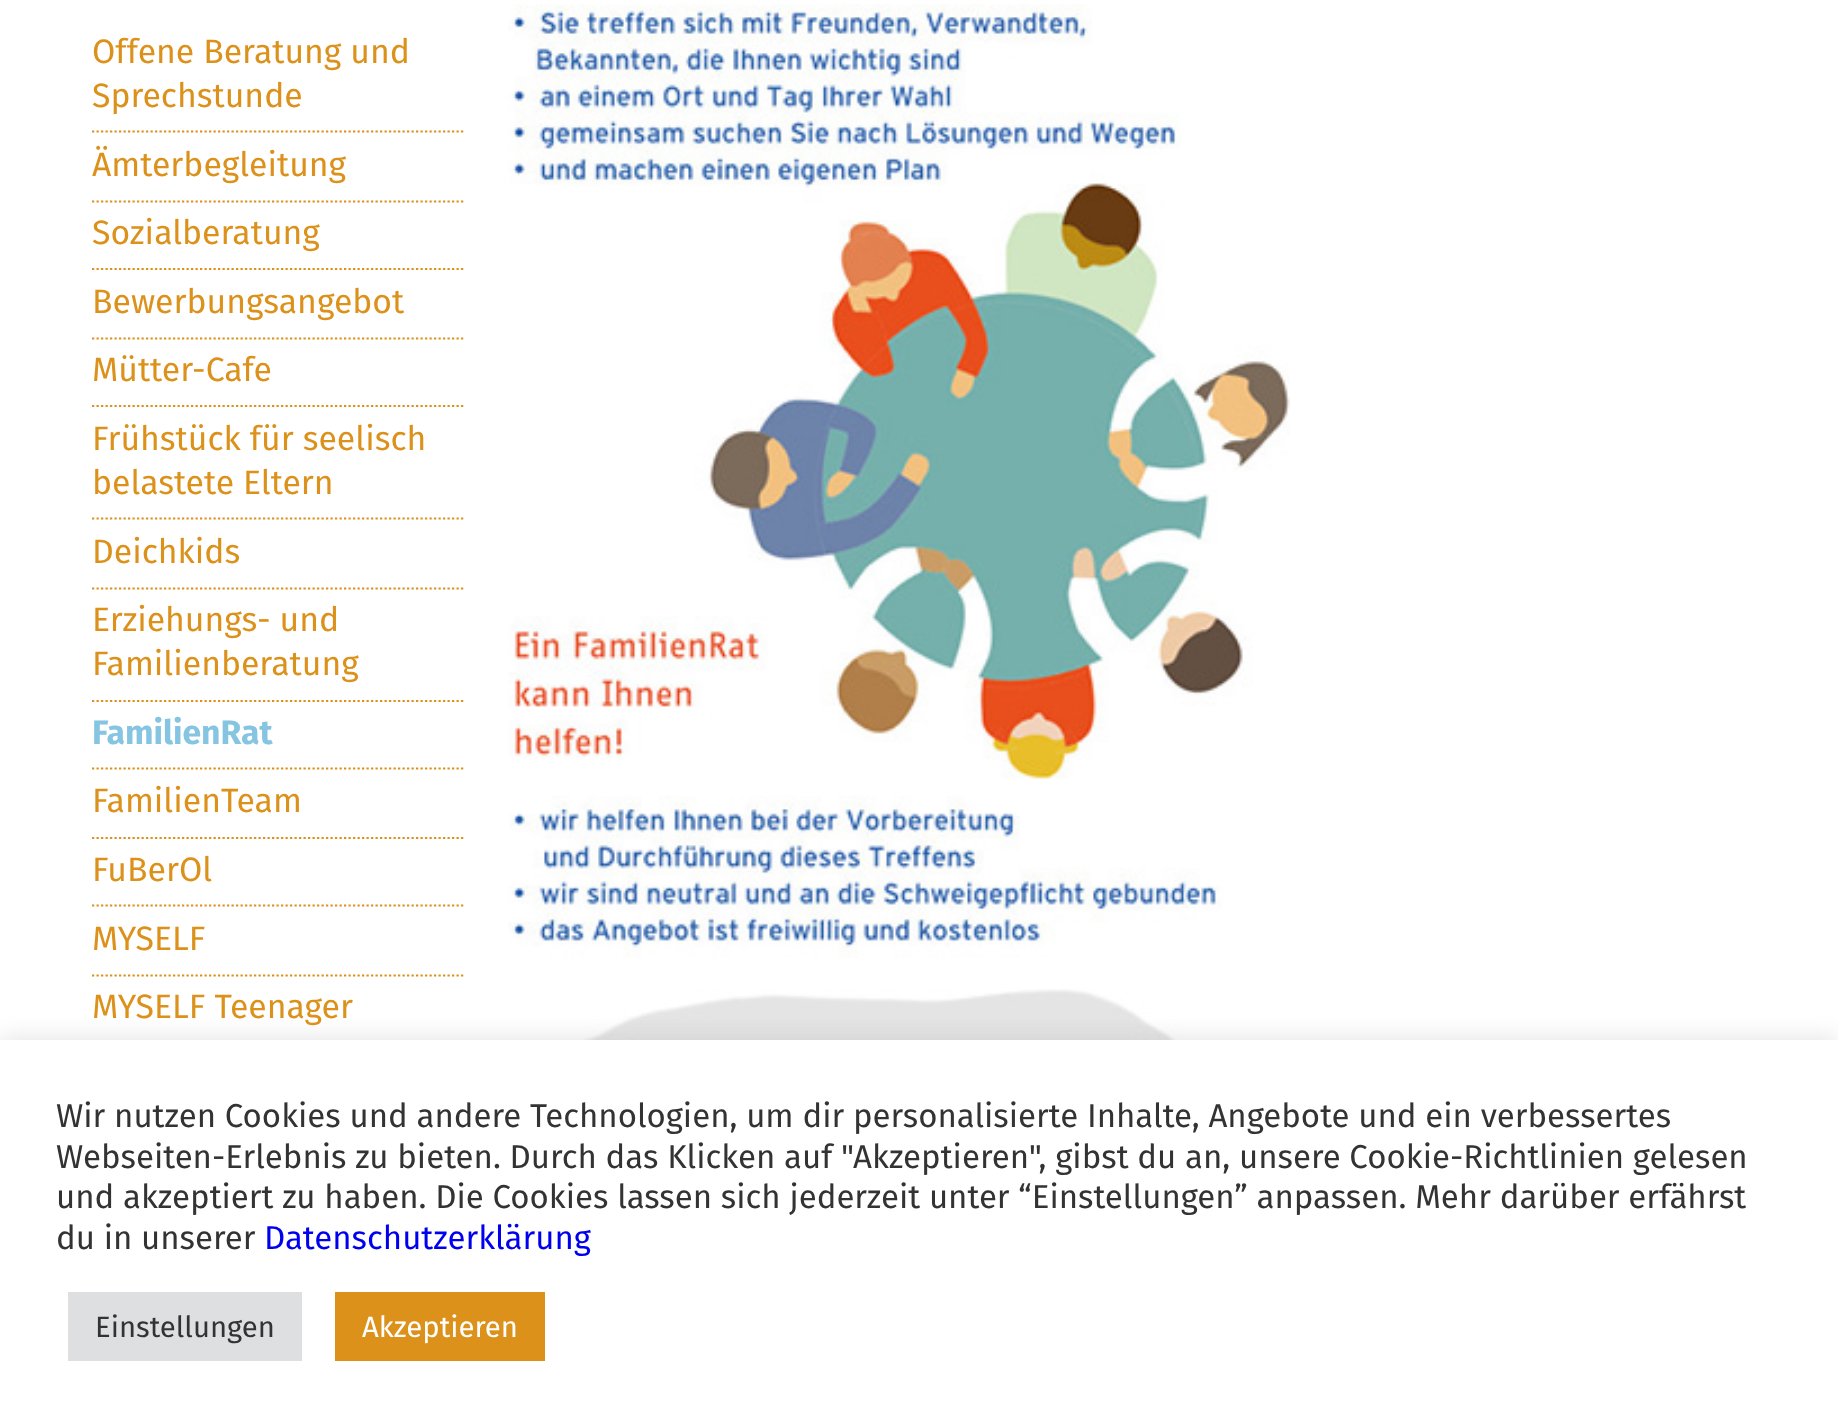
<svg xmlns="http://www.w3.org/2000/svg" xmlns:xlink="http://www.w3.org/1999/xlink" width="1838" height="1428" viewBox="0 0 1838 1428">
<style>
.cls-1{font:33.75px Fira Sans;fill:#dc911b}
.cls-2{font:bold 33.75px Fira Sans;fill:#85c5e2}
.cls-3{font:33px Fira Sans;fill:#333333}
.cls-4{font:33px Fira Sans;fill:#0000ee}
.cls-5{font:29.25px Fira Sans;fill:#333333}
.cls-6{font:29.25px Fira Sans;fill:#ffffff}
</style>
<rect width="100%" height="100%" fill="#ffffff"/>
<path fill="none" stroke="#dc911b" stroke-width="2.2" stroke-dasharray="2.25 2.25" d="M92 131.5H463.5"/>
<path fill="none" stroke="#dc911b" stroke-width="2.2" stroke-dasharray="2.25 2.25" d="M92 201.5H463.5"/>
<path fill="none" stroke="#dc911b" stroke-width="2.2" stroke-dasharray="2.25 2.25" d="M92 269H463.5"/>
<path fill="none" stroke="#dc911b" stroke-width="2.2" stroke-dasharray="2.25 2.25" d="M92 338.5H463.5"/>
<path fill="none" stroke="#dc911b" stroke-width="2.2" stroke-dasharray="2.25 2.25" d="M92 406H463.5"/>
<path fill="none" stroke="#dc911b" stroke-width="2.2" stroke-dasharray="2.25 2.25" d="M92 518.5H463.5"/>
<path fill="none" stroke="#dc911b" stroke-width="2.2" stroke-dasharray="2.25 2.25" d="M92 588.5H463.5"/>
<path fill="none" stroke="#dc911b" stroke-width="2.2" stroke-dasharray="2.25 2.25" d="M92 701H463.5"/>
<path fill="none" stroke="#dc911b" stroke-width="2.2" stroke-dasharray="2.25 2.25" d="M92 768.5H463.5"/>
<path fill="none" stroke="#dc911b" stroke-width="2.2" stroke-dasharray="2.25 2.25" d="M92 838H463.5"/>
<path fill="none" stroke="#dc911b" stroke-width="2.2" stroke-dasharray="2.25 2.25" d="M92 905.5H463.5"/>
<path fill="none" stroke="#dc911b" stroke-width="2.2" stroke-dasharray="2.25 2.25" d="M92 975.5H463.5"/>
<image xlink:href="image0.png" x="508" y="4" width="782" height="954"/>
<image xlink:href="image1.png" x="503" y="989" width="774" height="51"/>
<rect fill="#acabab" fill-opacity="0.3" filter="blur(11px)" x="0" y="1037" width="1838" height="390"/>
<rect fill="#ffffff" x="0" y="1040" width="1838" height="388"/>
<rect fill="#dedfe0" x="68" y="1292" width="234" height="69"/>
<rect fill="#dc911b" x="335" y="1292" width="210" height="69"/>
<text class="cls-1"><tspan x="92" y="63">Offene Beratung und</tspan><tspan x="92" y="107">Sprechstunde</tspan></text>
<text class="cls-1" x="92" y="176">Ämterbegleitung</text>
<text class="cls-1" x="92" y="244">Sozialberatung</text>
<text class="cls-1" x="92" y="313">Bewerbungsangebot</text>
<text class="cls-1" x="92" y="381">Mütter-Cafe</text>
<text class="cls-1"><tspan x="92" y="450">Frühstück für seelisch</tspan><tspan x="92" y="494">belastete Eltern</tspan></text>
<text class="cls-1" x="92" y="563">Deichkids</text>
<text class="cls-1"><tspan x="92" y="631">Erziehungs- und</tspan><tspan x="92" y="675">Familienberatung</tspan></text>
<text class="cls-2" x="92" y="744">FamilienRat</text>
<text class="cls-1" x="92" y="812">FamilienTeam</text>
<text class="cls-1" x="92" y="881">FuBerOl</text>
<text class="cls-1" x="92" y="950">MYSELF</text>
<text class="cls-1" x="92" y="1018">MYSELF Teenager</text>
<text class="cls-3"><tspan x="56" y="1127">Wir nutzen Cookies und andere Technologien, um dir personalisierte Inhalte, Angebote und ein verbessertes</tspan><tspan x="56" y="1168">Webseiten-Erlebnis zu bieten. Durch das Klicken auf "Akzeptieren", gibst du an, unsere Cookie-Richtlinien gelesen</tspan><tspan x="56" y="1208">und akzeptiert zu haben. Die Cookies lassen sich jederzeit unter “Einstellungen” anpassen. Mehr darüber erfährst</tspan><tspan x="56" y="1249">du in unserer</tspan></text>
<text class="cls-4" x="264" y="1249">Datenschutzerklärung</text>
<text class="cls-5" x="95" y="1337">Einstellungen</text>
<text class="cls-6" x="362" y="1337">Akzeptieren</text>
</svg>
